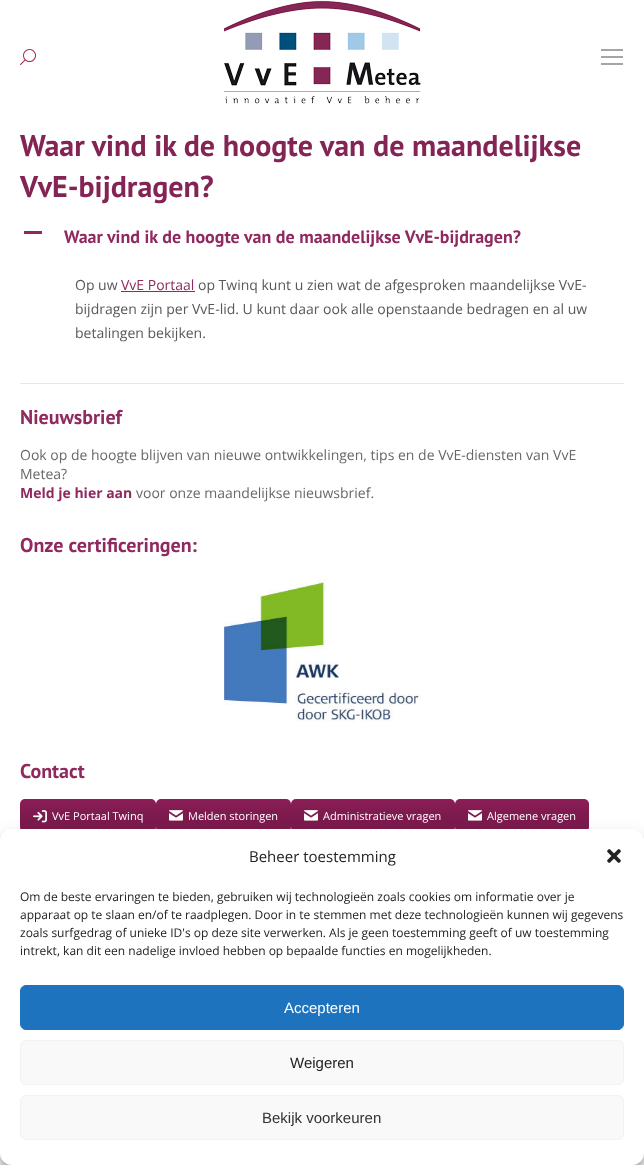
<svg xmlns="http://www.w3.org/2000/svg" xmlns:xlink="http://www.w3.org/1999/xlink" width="644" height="1165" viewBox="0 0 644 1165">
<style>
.cls-1{font:bold 30px PT Sans;fill:#842454}
.cls-2{font:bold 18px PT Sans;fill:#90295e}
.cls-3{font:14px Open Sans;fill:#58585c}
.cls-4{font:14px Open Sans;fill:#90295e}
.cls-5{font:bold 20px PT Sans;fill:#90295e}
.cls-6{font:14px Open Sans;fill:#686868}
.cls-7{font:bold 14px Open Sans;fill:#90295e}
.cls-8{font:11px Open Sans;fill:#ffffff}
.cls-9{font:15px Open Sans;fill:#222222}
.cls-10{font:12px Open Sans;fill:#222222}
.cls-11{font:15px Liberation Sans;fill:#ffffff}
.cls-12{font:15px Liberation Sans;fill:#222222}
.cls-13{font:15px Liberation Sans;fill:#333333}
</style>
<defs>
<linearGradient id="g1" gradientUnits="userSpaceOnUse" x1="155" y1="800" x2="155" y2="831"><stop offset="0" stop-color="#000000" stop-opacity="0"/><stop offset="0.5" stop-color="#000000" stop-opacity="0.1"/><stop offset="1" stop-color="#000000" stop-opacity="0.1"/></linearGradient>
<linearGradient id="g2" gradientUnits="userSpaceOnUse" x1="290" y1="800" x2="290" y2="831"><stop offset="0" stop-color="#000000" stop-opacity="0"/><stop offset="0.5" stop-color="#000000" stop-opacity="0.1"/><stop offset="1" stop-color="#000000" stop-opacity="0.1"/></linearGradient>
<linearGradient id="g3" gradientUnits="userSpaceOnUse" x1="454" y1="800" x2="454" y2="831"><stop offset="0" stop-color="#000000" stop-opacity="0"/><stop offset="0.5" stop-color="#000000" stop-opacity="0.1"/><stop offset="1" stop-color="#000000" stop-opacity="0.1"/></linearGradient>
<linearGradient id="g4" gradientUnits="userSpaceOnUse" x1="588" y1="800" x2="588" y2="831"><stop offset="0" stop-color="#000000" stop-opacity="0"/><stop offset="0.5" stop-color="#000000" stop-opacity="0.1"/><stop offset="1" stop-color="#000000" stop-opacity="0.1"/></linearGradient>
</defs>
<rect width="100%" height="100%" fill="#ffffff"/>
<image xlink:href="image0.png" x="20" y="49" width="16" height="16"/>
<image xlink:href="image1.png" x="223" y="0" width="198" height="104"/>
<rect fill="#a5a5a5" x="601" y="49" width="22" height="2"/>
<rect fill="#a5a5a5" x="601" y="56" width="22" height="2"/>
<rect fill="#a5a5a5" x="601" y="63" width="22" height="2"/>
<rect fill="#90295e" x="24" y="231" width="18" height="3"/>
<rect fill="#90295e" x="121" y="291" width="74" height="1"/>
<rect fill="#e7e7e7" x="20" y="383" width="604" height="1"/>
<image xlink:href="image2.png" x="223" y="578" width="199" height="144"/>
<rect fill="#8a1d56" x="20" y="799" width="136" height="33" rx="5"/>
<rect fill="url(#g1)" x="20" y="803" width="136" height="26"/>
<image xlink:href="image3.png" x="33" y="810" width="14" height="13"/>
<rect fill="#8a1d56" x="156" y="799" width="135" height="33" rx="5"/>
<rect fill="url(#g2)" x="156" y="803" width="135" height="26"/>
<image xlink:href="image4.png" x="169" y="810" width="14" height="11"/>
<rect fill="#8a1d56" x="291" y="799" width="164" height="33" rx="5"/>
<rect fill="url(#g3)" x="291" y="803" width="164" height="26"/>
<image xlink:href="image4.png" x="304" y="810" width="14" height="11"/>
<rect fill="#8a1d56" x="455" y="799" width="134" height="33" rx="5"/>
<rect fill="url(#g4)" x="455" y="803" width="134" height="26"/>
<image xlink:href="image4.png" x="468" y="810" width="14" height="11"/>
<rect fill="#000000" fill-opacity="0.23" filter="blur(3px)" x="0" y="835" width="644" height="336" rx="12"/>
<rect fill="#000000" fill-opacity="0.19" filter="blur(10px)" x="0" y="839" width="644" height="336" rx="12"/>
<rect fill="#808080" filter="blur(2.5px)" x="574" y="1091" width="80" height="60" rx="2"/>
<rect fill="#ffffff" x="0" y="829" width="644" height="336" rx="12"/>
<image xlink:href="image5.png" x="607" y="849" width="14" height="14"/>
<rect fill="#1e73be" stroke="#1e73be" x="20.5" y="985.5" width="603" height="44" rx="5.5"/>
<rect fill="#f9f9f9" stroke="#f2f2f2" x="20.5" y="1040.5" width="603" height="44" rx="5.5"/>
<rect fill="#f9f9f9" stroke="#f2f2f2" x="20.5" y="1095.5" width="603" height="44" rx="5.5"/>
<text class="cls-1"><tspan x="20" y="156">Waar vind ik de hoogte van de maandelijkse</tspan><tspan x="20" y="197">VvE-bijdragen?</tspan></text>
<text class="cls-2" x="64" y="243">Waar vind ik de hoogte van de maandelijkse VvE-bijdragen?</text>
<text class="cls-3" x="75" y="290">Op uw</text>
<text class="cls-4" x="121" y="290">VvE Portaal</text>
<text class="cls-3" x="198" y="290">op Twinq kunt u zien wat de afgesproken maandelijkse VvE-</text>
<text class="cls-3"><tspan x="75" y="314">bijdragen zijn per VvE-lid. U kunt daar ook alle openstaande bedragen en al uw</tspan><tspan x="75" y="338">betalingen bekijken.</tspan></text>
<text class="cls-5" x="20" y="424">Nieuwsbrief</text>
<text class="cls-6"><tspan x="20" y="460">Ook op de hoogte blijven van nieuwe ontwikkelingen, tips en de VvE-diensten van VvE</tspan><tspan x="20" y="479">Metea?</tspan></text>
<text class="cls-7" x="20" y="498">Meld je hier aan</text>
<text class="cls-6" x="136" y="498">voor onze maandelijkse nieuwsbrief.</text>
<text class="cls-5" x="20" y="552">Onze certificeringen:</text>
<text class="cls-5" x="20" y="778">Contact</text>
<text class="cls-8" x="52" y="820">VvE Portaal Twinq</text>
<text class="cls-8" x="188" y="820">Melden storingen</text>
<text class="cls-8" x="323" y="820">Administratieve vragen</text>
<text class="cls-8" x="487" y="820">Algemene vragen</text>
<text class="cls-9" x="249" y="862">Beheer toestemming</text>
<text class="cls-10"><tspan x="20" y="901">Om de beste ervaringen te bieden, gebruiken wij technologieën zoals cookies om informatie over je</tspan><tspan x="20" y="919">apparaat op te slaan en/of te raadplegen. Door in te stemmen met deze technologieën kunnen wij gegevens</tspan><tspan x="20" y="937">zoals surfgedrag of unieke ID's op deze site verwerken. Als je geen toestemming geeft of uw toestemming</tspan><tspan x="20" y="955">intrekt, kan dit een nadelige invloed hebben op bepaalde functies en mogelijkheden.</tspan></text>
<text class="cls-11" x="284" y="1013">Accepteren</text>
<text class="cls-12" x="290" y="1068">Weigeren</text>
<text class="cls-13" x="262" y="1123">Bekijk voorkeuren</text>
</svg>
